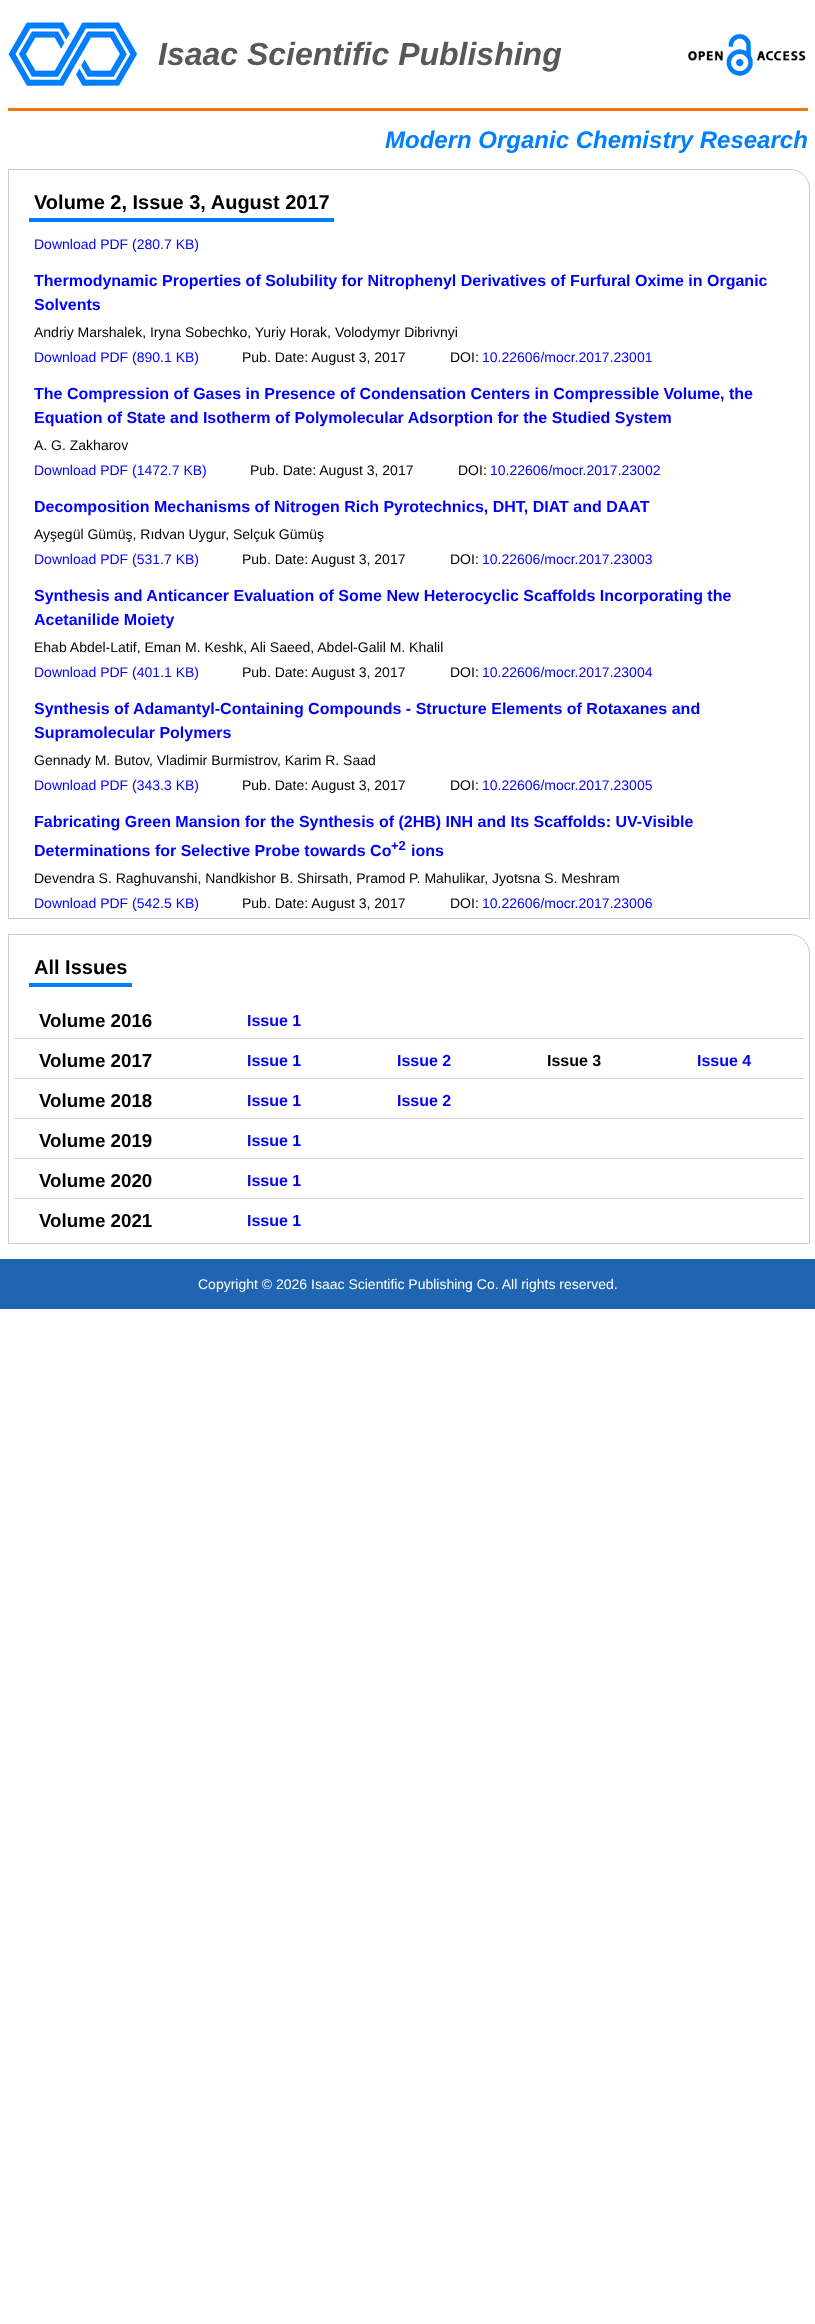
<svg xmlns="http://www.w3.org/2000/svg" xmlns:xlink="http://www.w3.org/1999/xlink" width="815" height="2324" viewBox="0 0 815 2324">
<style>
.cls-1{font:italic bold 32px Liberation Sans;fill:#585858}
.cls-2{font:italic bold 24px Liberation Sans;fill:#007fff}
.cls-3{font:bold 20px Liberation Sans;fill:#000000}
.cls-4{font:14px Liberation Sans;fill:#0000ff}
.cls-5{font:bold 16px Liberation Sans;fill:#0000ff}
.cls-6{font:14px Liberation Sans;fill:#000000}
.cls-7{font:bold 13px Liberation Sans;fill:#0000ff}
.cls-8{font:bold 18.75px Liberation Sans;fill:#000000}
.cls-9{font:bold 16px Liberation Sans;fill:#000000}
.cls-10{font:14px Liberation Sans;fill:#ffffff}
</style>
<rect width="100%" height="100%" fill="#ffffff"/>
<rect fill="#f57605" x="8" y="108" width="800" height="3"/>
<image xlink:href="image0.png" x="8" y="22" width="130" height="64"/>
<image xlink:href="image1.png" x="688" y="33" width="118" height="43"/>
<path fill="none" stroke="#cccccc" d="M8.5 169.5H790C801 169.5 809.5 178 809.5 189V918.5H8.5Z"/>
<rect fill="#007fff" x="29" y="218" width="305" height="4"/>
<path fill="none" stroke="#cccccc" d="M8.5 934.5H790C801 934.5 809.5 943 809.5 954V1243.5H8.5Z"/>
<rect fill="#007fff" x="29" y="983" width="103" height="4"/>
<rect fill="#d3d3d3" x="14" y="1038" width="790" height="1"/>
<rect fill="#d3d3d3" x="14" y="1078" width="790" height="1"/>
<rect fill="#d3d3d3" x="14" y="1118" width="790" height="1"/>
<rect fill="#d3d3d3" x="14" y="1158" width="790" height="1"/>
<rect fill="#d3d3d3" x="14" y="1198" width="790" height="1"/>
<rect fill="#2065b2" x="0" y="1259" width="815" height="50"/>
<text class="cls-1" x="158" y="65">Isaac Scientific Publishing</text>
<text class="cls-2" x="385" y="148">Modern Organic Chemistry Research</text>
<text class="cls-3" x="34" y="209">Volume 2, Issue 3, August 2017</text>
<text class="cls-4" x="34" y="249">Download PDF (280.7 KB)</text>
<text class="cls-5"><tspan x="34" y="286">Thermodynamic Properties of Solubility for Nitrophenyl Derivatives of Furfural Oxime in Organic</tspan><tspan x="34" y="310">Solvents</tspan></text>
<text class="cls-6" x="34" y="337">Andriy Marshalek, Iryna Sobechko, Yuriy Horak, Volodymyr Dibrivnyi</text>
<text class="cls-4" x="34" y="362">Download PDF (890.1 KB)</text>
<text class="cls-6" x="242" y="362">Pub. Date: August 3, 2017</text>
<text class="cls-6" x="450" y="362">DOI:</text>
<text class="cls-4" x="482" y="362">10.22606/mocr.2017.23001</text>
<text class="cls-5"><tspan x="34" y="399">The Compression of Gases in Presence of Condensation Centers in Compressible Volume, the</tspan><tspan x="34" y="423">Equation of State and Isotherm of Polymolecular Adsorption for the Studied System</tspan></text>
<text class="cls-6" x="34" y="450">A. G. Zakharov</text>
<text class="cls-4" x="34" y="475">Download PDF (1472.7 KB)</text>
<text class="cls-6" x="250" y="475">Pub. Date: August 3, 2017</text>
<text class="cls-6" x="458" y="475">DOI:</text>
<text class="cls-4" x="490" y="475">10.22606/mocr.2017.23002</text>
<text class="cls-5" x="34" y="512">Decomposition Mechanisms of Nitrogen Rich Pyrotechnics, DHT, DIAT and DAAT</text>
<text class="cls-6" x="34" y="539">Ayşegül Gümüş, Rıdvan Uygur, Selçuk Gümüş</text>
<text class="cls-4" x="34" y="564">Download PDF (531.7 KB)</text>
<text class="cls-6" x="242" y="564">Pub. Date: August 3, 2017</text>
<text class="cls-6" x="450" y="564">DOI:</text>
<text class="cls-4" x="482" y="564">10.22606/mocr.2017.23003</text>
<text class="cls-5"><tspan x="34" y="601">Synthesis and Anticancer Evaluation of Some New Heterocyclic Scaffolds Incorporating the</tspan><tspan x="34" y="625">Acetanilide Moiety</tspan></text>
<text class="cls-6" x="34" y="652">Ehab Abdel-Latif, Eman M. Keshk, Ali Saeed, Abdel-Galil M. Khalil</text>
<text class="cls-4" x="34" y="677">Download PDF (401.1 KB)</text>
<text class="cls-6" x="242" y="677">Pub. Date: August 3, 2017</text>
<text class="cls-6" x="450" y="677">DOI:</text>
<text class="cls-4" x="482" y="677">10.22606/mocr.2017.23004</text>
<text class="cls-5"><tspan x="34" y="714">Synthesis of Adamantyl-Containing Compounds - Structure Elements of Rotaxanes and</tspan><tspan x="34" y="738">Supramolecular Polymers</tspan></text>
<text class="cls-6" x="34" y="765">Gennady M. Butov, Vladimir Burmistrov, Karim R. Saad</text>
<text class="cls-4" x="34" y="790">Download PDF (343.3 KB)</text>
<text class="cls-6" x="242" y="790">Pub. Date: August 3, 2017</text>
<text class="cls-6" x="450" y="790">DOI:</text>
<text class="cls-4" x="482" y="790">10.22606/mocr.2017.23005</text>
<text class="cls-5"><tspan x="34" y="827">Fabricating Green Mansion for the Synthesis of (2HB) INH and Its Scaffolds: UV-Visible</tspan><tspan x="34" y="856">Determinations for Selective Probe towards Co</tspan></text>
<text class="cls-7" x="391" y="850">+2</text>
<text class="cls-5" x="411" y="856">ions</text>
<text class="cls-6" x="34" y="883">Devendra S. Raghuvanshi, Nandkishor B. Shirsath, Pramod P. Mahulikar, Jyotsna S. Meshram</text>
<text class="cls-4" x="34" y="908">Download PDF (542.5 KB)</text>
<text class="cls-6" x="242" y="908">Pub. Date: August 3, 2017</text>
<text class="cls-6" x="450" y="908">DOI:</text>
<text class="cls-4" x="482" y="908">10.22606/mocr.2017.23006</text>
<text class="cls-3" x="34" y="974">All Issues</text>
<text class="cls-8" x="39" y="1027">Volume 2016</text>
<text class="cls-5" x="247" y="1026">Issue 1</text>
<text class="cls-8" x="39" y="1067">Volume 2017</text>
<text class="cls-5" x="247" y="1066">Issue 1</text>
<text class="cls-5" x="397" y="1066">Issue 2</text>
<text class="cls-9" x="547" y="1066">Issue 3</text>
<text class="cls-5" x="697" y="1066">Issue 4</text>
<text class="cls-8" x="39" y="1107">Volume 2018</text>
<text class="cls-5" x="247" y="1106">Issue 1</text>
<text class="cls-5" x="397" y="1106">Issue 2</text>
<text class="cls-8" x="39" y="1147">Volume 2019</text>
<text class="cls-5" x="247" y="1146">Issue 1</text>
<text class="cls-8" x="39" y="1187">Volume 2020</text>
<text class="cls-5" x="247" y="1186">Issue 1</text>
<text class="cls-8" x="39" y="1227">Volume 2021</text>
<text class="cls-5" x="247" y="1226">Issue 1</text>
<text class="cls-10" x="198" y="1289">Copyright © 2026 Isaac Scientific Publishing Co. All rights reserved.</text>
</svg>
